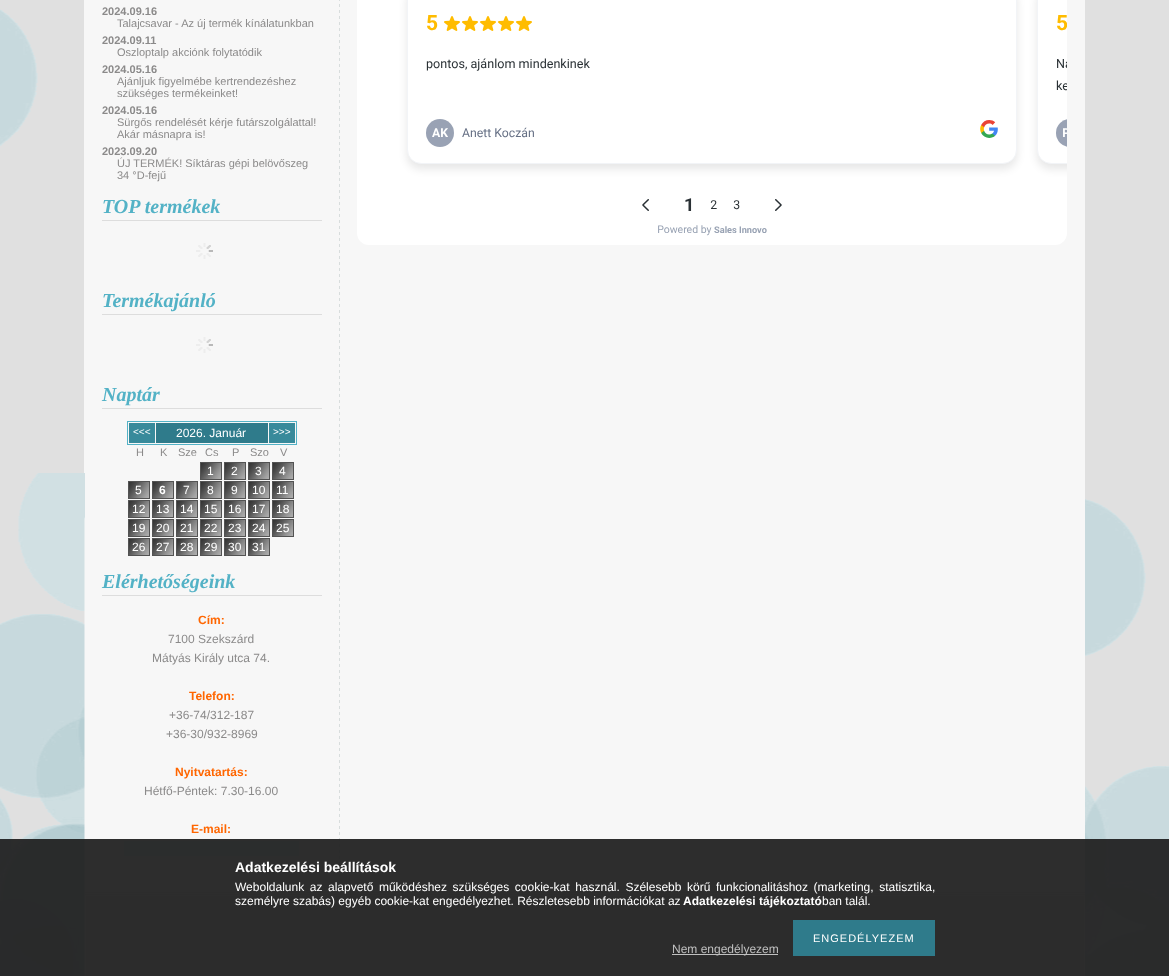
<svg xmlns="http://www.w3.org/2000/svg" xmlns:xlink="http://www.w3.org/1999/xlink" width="1169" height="976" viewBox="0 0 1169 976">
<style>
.cls-1{font:bold 11px Liberation Sans;fill:#8b8a8a}
.cls-2{font:11px Liberation Sans;fill:#8b8a8a}
.cls-3{font:italic bold 20px Liberation Serif;fill:#53b2c6}
.cls-4{font:10px Liberation Sans;fill:#ffffff}
.cls-5{font:12px Liberation Sans;fill:#ffffff}
.cls-6{font:bold 12px Liberation Sans;fill:#ffffff}
.cls-7{font:bold 12px Liberation Sans;fill:#ff6600}
.cls-8{font:12px Liberation Sans;fill:#8b8a8a}
.cls-9{font:bold 14px Liberation Sans;fill:#ffffff}
.cls-10{font:11px Liberation Sans;letter-spacing:1px;fill:#ffffff}
.cls-11{font:12px Liberation Sans;fill:#c0c0c0}
</style>
<rect width="100%" height="100%" fill="#ffffff"/>
<image xlink:href="image0.png" x="0" y="0" width="1169" height="976"/>
<rect fill="#f7f7f7" x="84" y="0" width="1" height="473"/>
<image xlink:href="image1.png" x="85" y="0" width="1000" height="892"/>
<rect fill="#dddddd" x="102" y="220" width="220" height="1"/>
<image xlink:href="image2.png" x="196" y="243" width="17" height="16"/>
<rect fill="#dddddd" x="102" y="314" width="220" height="1"/>
<image xlink:href="image2.png" x="196" y="337" width="17" height="16"/>
<rect fill="#dddddd" x="102" y="408" width="220" height="1"/>
<rect fill="none" stroke="#53b2c6" x="127.5" y="421.5" width="169" height="23"/>
<rect fill="#388a9b" x="129" y="423" width="26" height="20"/>
<rect fill="#2f7b8b" x="156" y="423" width="112" height="20"/>
<rect fill="#388a9b" x="269" y="423" width="26" height="20"/>
<image xlink:href="image3.png" x="200" y="462" width="22" height="18"/>
<image xlink:href="image3.png" x="224" y="462" width="22" height="18"/>
<image xlink:href="image3.png" x="248" y="462" width="22" height="18"/>
<image xlink:href="image3.png" x="272" y="462" width="22" height="18"/>
<image xlink:href="image3.png" x="128" y="481" width="22" height="18"/>
<image xlink:href="image3.png" x="152" y="481" width="22" height="18"/>
<image xlink:href="image3.png" x="176" y="481" width="22" height="18"/>
<image xlink:href="image3.png" x="200" y="481" width="22" height="18"/>
<image xlink:href="image3.png" x="224" y="481" width="22" height="18"/>
<image xlink:href="image3.png" x="248" y="481" width="22" height="18"/>
<image xlink:href="image3.png" x="272" y="481" width="22" height="18"/>
<image xlink:href="image3.png" x="128" y="500" width="22" height="18"/>
<image xlink:href="image3.png" x="152" y="500" width="22" height="18"/>
<image xlink:href="image3.png" x="176" y="500" width="22" height="18"/>
<image xlink:href="image3.png" x="200" y="500" width="22" height="18"/>
<image xlink:href="image3.png" x="224" y="500" width="22" height="18"/>
<image xlink:href="image3.png" x="248" y="500" width="22" height="18"/>
<image xlink:href="image3.png" x="272" y="500" width="22" height="18"/>
<image xlink:href="image3.png" x="128" y="519" width="22" height="18"/>
<image xlink:href="image3.png" x="152" y="519" width="22" height="18"/>
<image xlink:href="image3.png" x="176" y="519" width="22" height="18"/>
<image xlink:href="image3.png" x="200" y="519" width="22" height="18"/>
<image xlink:href="image3.png" x="224" y="519" width="22" height="18"/>
<image xlink:href="image3.png" x="248" y="519" width="22" height="18"/>
<image xlink:href="image3.png" x="272" y="519" width="22" height="18"/>
<image xlink:href="image3.png" x="128" y="538" width="22" height="18"/>
<image xlink:href="image3.png" x="152" y="538" width="22" height="18"/>
<image xlink:href="image3.png" x="176" y="538" width="22" height="18"/>
<image xlink:href="image3.png" x="200" y="538" width="22" height="18"/>
<image xlink:href="image3.png" x="224" y="538" width="22" height="18"/>
<image xlink:href="image3.png" x="248" y="538" width="22" height="18"/>
<rect fill="#dddddd" x="102" y="595" width="220" height="1"/>
<rect fill="#ccffff" x="124" y="841" width="175" height="15"/>
<image xlink:href="image4.png" x="357" y="0" width="710" height="245"/>
<rect fill="#dddddd" x="85" y="892" width="1000" height="1"/>
<rect fill="#ffffff" x="85" y="893" width="1000" height="1"/>
<rect fill="#dddddd" x="85" y="894" width="1000" height="1"/>
<rect fill="#e7e7e7" x="86" y="896" width="998" height="80"/>
<rect fill="#ffffff" x="85" y="895" width="1000" height="1"/>
<rect fill="#f7f7f7" x="1084" y="895" width="1" height="81"/>
<rect fill="#f7f7f7" x="85" y="895" width="1" height="1"/>
<rect fill="#222222" fill-opacity="0.95" x="0" y="839" width="1169" height="137"/>
<rect fill="#2f7b8b" x="793" y="920" width="142" height="36"/>
<rect fill="#c0c0c0" x="672" y="954" width="106" height="1"/>
<text class="cls-1" x="102" y="15">2024.09.16</text>
<text class="cls-2" x="117" y="27">Talajcsavar - Az új termék kínálatunkban</text>
<text class="cls-1" x="102" y="44">2024.09.11</text>
<text class="cls-2" x="117" y="56">Oszloptalp akciónk folytatódik</text>
<text class="cls-1" x="102" y="73">2024.05.16</text>
<text class="cls-2"><tspan x="117" y="85">Ajánljuk figyelmébe kertrendezéshez</tspan><tspan x="117" y="97">szükséges termékeinket!</tspan></text>
<text class="cls-1" x="102" y="114">2024.05.16</text>
<text class="cls-2"><tspan x="117" y="126">Sürgős rendelését kérje futárszolgálattal!</tspan><tspan x="117" y="138">Akár másnapra is!</tspan></text>
<text class="cls-1" x="102" y="155">2023.09.20</text>
<text class="cls-2"><tspan x="117" y="167">ÚJ TERMÉK! Síktáras gépi belövőszeg</tspan><tspan x="117" y="179">34 °D-fejű</tspan></text>
<text class="cls-3" x="102" y="213">TOP termékek</text>
<text class="cls-3" x="102" y="307">Termékajánló</text>
<text class="cls-3" x="102" y="401">Naptár</text>
<text class="cls-4" x="133" y="435">&lt;&lt;&lt;</text>
<text class="cls-5" x="176" y="437">2026. Január</text>
<text class="cls-4" x="273" y="435">&gt;&gt;&gt;</text>
<text class="cls-2" x="136" y="456">H</text>
<text class="cls-2" x="160" y="456">K</text>
<text class="cls-2" x="178" y="456">Sze</text>
<text class="cls-2" x="205" y="456">Cs</text>
<text class="cls-2" x="232" y="456">P</text>
<text class="cls-2" x="250" y="456">Szo</text>
<text class="cls-2" x="280" y="456">V</text>
<text class="cls-5" x="207" y="475">1</text>
<text class="cls-5" x="231" y="475">2</text>
<text class="cls-5" x="255" y="475">3</text>
<text class="cls-5" x="279" y="475">4</text>
<text class="cls-5" x="135" y="494">5</text>
<text class="cls-6" x="159" y="494">6</text>
<text class="cls-5" x="183" y="494">7</text>
<text class="cls-5" x="207" y="494">8</text>
<text class="cls-5" x="231" y="494">9</text>
<text class="cls-5" x="252" y="494">10</text>
<text class="cls-5" x="276" y="494">11</text>
<text class="cls-5" x="132" y="513">12</text>
<text class="cls-5" x="156" y="513">13</text>
<text class="cls-5" x="180" y="513">14</text>
<text class="cls-5" x="204" y="513">15</text>
<text class="cls-5" x="228" y="513">16</text>
<text class="cls-5" x="252" y="513">17</text>
<text class="cls-5" x="276" y="513">18</text>
<text class="cls-5" x="132" y="532">19</text>
<text class="cls-5" x="156" y="532">20</text>
<text class="cls-5" x="180" y="532">21</text>
<text class="cls-5" x="204" y="532">22</text>
<text class="cls-5" x="228" y="532">23</text>
<text class="cls-5" x="252" y="532">24</text>
<text class="cls-5" x="276" y="532">25</text>
<text class="cls-5" x="132" y="551">26</text>
<text class="cls-5" x="156" y="551">27</text>
<text class="cls-5" x="180" y="551">28</text>
<text class="cls-5" x="204" y="551">29</text>
<text class="cls-5" x="228" y="551">30</text>
<text class="cls-5" x="252" y="551">31</text>
<text class="cls-3" x="102" y="588">Elérhetőségeink</text>
<text class="cls-7" x="198" y="624">Cím:</text>
<text class="cls-8" x="168" y="643">7100 Szekszárd</text>
<text class="cls-8" x="152" y="662">Mátyás Király utca 74.</text>
<text class="cls-7" x="189" y="700">Telefon:</text>
<text class="cls-8" x="169" y="719">+36-74/312-187</text>
<text class="cls-8" x="166" y="738">+36-30/932-8969</text>
<text class="cls-7" x="175" y="776">Nyitvatartás:</text>
<text class="cls-8" x="144" y="795">Hétfő-Péntek: 7.30-16.00</text>
<text class="cls-7" x="191" y="833">E-mail:</text>
<text class="cls-9" x="235" y="872">Adatkezelési beállítások</text>
<text class="cls-5"><tspan x="235" y="891" word-spacing="2.25">Weboldalunk az alapvető működéshez szükséges cookie-kat használ. Szélesebb körű funkcionalitáshoz (marketing, statisztika,</tspan><tspan x="235" y="905">személyre szabás) egyéb cookie-kat engedélyezhet. Részletesebb információkat az</tspan></text>
<text class="cls-6" x="683" y="905">Adatkezelési tájékoztató</text>
<text class="cls-5" x="822" y="905">ban talál.</text>
<text class="cls-10" x="813" y="942">ENGEDÉLYEZEM</text>
<text class="cls-11" x="672" y="953">Nem engedélyezem</text>
</svg>
